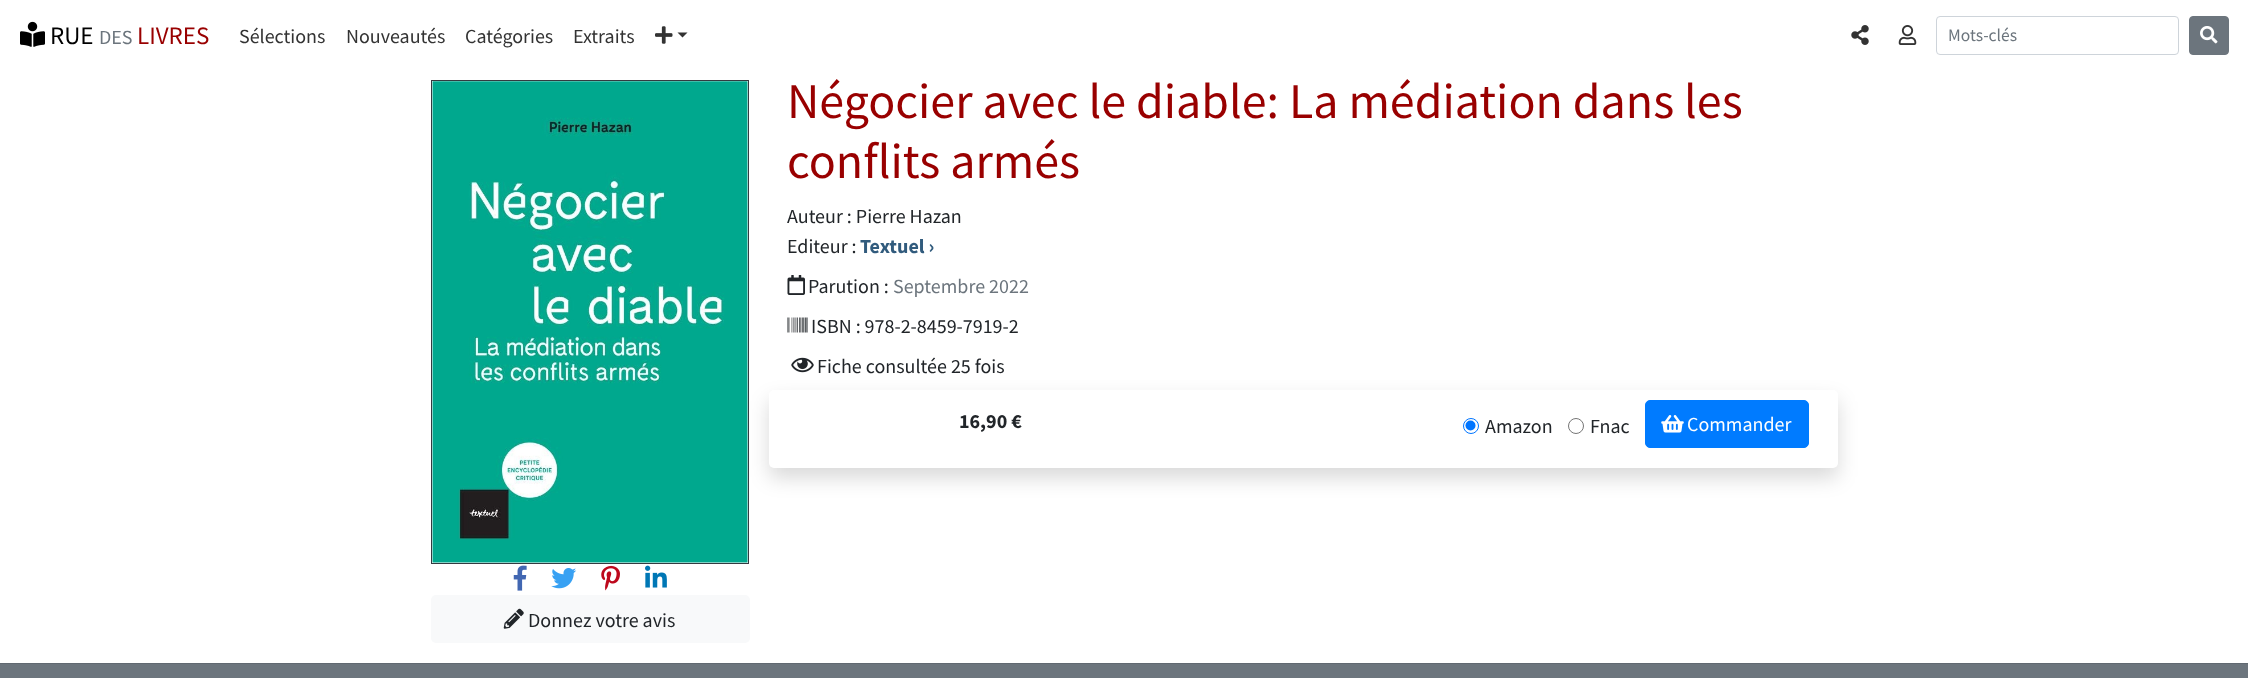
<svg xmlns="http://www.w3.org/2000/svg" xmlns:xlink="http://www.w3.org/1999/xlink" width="2248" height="678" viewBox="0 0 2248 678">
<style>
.cls-1{font:25px Source Sans Pro;fill:#000000}
.cls-2{font:20px Source Sans Pro;fill:#6c757d}
.cls-3{font:25px Source Sans Pro;fill:#990000}
.cls-4{font:20px Source Sans Pro;fill:#333333}
.cls-5{font:17.5px Source Sans Pro;fill:#6c757d}
.cls-6{font:50px Source Sans Pro;fill:#990000}
.cls-7{font:20px Source Sans Pro;fill:#212529}
.cls-8{font:bold 20px Source Sans Pro;fill:#315b7d}
.cls-9{font:bold 20px Source Sans Pro;fill:#212529}
.cls-10{font:20px Source Sans Pro;fill:#ffffff}
</style>
<rect width="100%" height="100%" fill="#ffffff"/>
<image xlink:href="image0.png" x="20" y="21" width="25" height="26"/>
<image xlink:href="image1.png" x="655" y="26" width="18" height="18"/>
<path fill="#333333" d="M677.5 32.5H687.5L682.5 37.5Z"/>
<image xlink:href="image2.png" x="1851" y="25" width="18" height="20"/>
<image xlink:href="image3.png" x="1898" y="25" width="19" height="20"/>
<rect fill="none" stroke="#ced4da" x="1936.5" y="16.5" width="242" height="38" rx="3.5"/>
<rect fill="#6c757d" stroke="#6c757d" x="2189.5" y="16.5" width="39" height="38" rx="3.5"/>
<image xlink:href="image4.png" x="2200" y="26" width="18" height="18"/>
<image xlink:href="image5.png" x="787" y="275" width="18" height="20"/>
<image xlink:href="image6.png" x="787" y="317" width="21" height="16"/>
<rect fill="none" stroke="#343a40" x="431.5" y="80.5" width="317" height="483"/>
<image xlink:href="image9.png" x="432" y="81" width="316" height="482"/>
<rect fill="#000000" fill-opacity="0.15" filter="blur(10px)" x="769" y="400" width="1069" height="78" rx="5"/>
<image xlink:href="image7.png" x="791" y="357" width="23" height="16"/>
<rect fill="#ffffff" x="769" y="390" width="1069" height="78" rx="5"/>
<circle fill="none" stroke="#0075ff" cx="1471" cy="426" r="7.5"/>
<circle fill="#0075ff" cx="1470.5" cy="425.5" r="5"/>
<circle fill="none" stroke="#767676" cx="1576" cy="426" r="7.5"/>
<rect fill="#007bff" stroke="#007bff" x="1645.5" y="400.5" width="163" height="47" rx="4.5"/>
<image xlink:href="image8.png" x="1661" y="415" width="23" height="18"/>
<image xlink:href="image10.png" x="513" y="565" width="14" height="26"/>
<image xlink:href="image11.png" x="551" y="568" width="26" height="21"/>
<image xlink:href="image12.png" x="601" y="565" width="19" height="26"/>
<image xlink:href="image13.png" x="645" y="565" width="22" height="23"/>
<rect fill="#f8f9fa" x="431" y="595" width="319" height="48" rx="5"/>
<image xlink:href="image14.png" x="503" y="608" width="21" height="21"/>
<rect fill="#6c757d" x="0" y="664" width="2248" height="14"/>
<rect fill="#616971" x="0" y="663" width="2248" height="1"/>
<text class="cls-1" x="50" y="44">RUE</text>
<text class="cls-2" x="99" y="44">DES</text>
<text class="cls-3" x="137" y="44">LIVRES</text>
<text class="cls-4" x="239" y="43">Sélections</text>
<text class="cls-4" x="346" y="43">Nouveautés</text>
<text class="cls-4" x="465" y="43">Catégories</text>
<text class="cls-4" x="573" y="43">Extraits</text>
<text class="cls-5" x="1948" y="41">Mots-clés</text>
<text class="cls-6"><tspan x="787" y="118">Négocier avec le diable: La médiation dans les</tspan><tspan x="787" y="178">conflits armés</tspan></text>
<text class="cls-7"><tspan x="787" y="223">Auteur : Pierre Hazan</tspan><tspan x="787" y="253">Editeur :</tspan></text>
<text class="cls-8" x="860" y="253">Textuel ›</text>
<text class="cls-7" x="808" y="293">Parution :</text>
<text class="cls-2" x="893" y="293">Septembre 2022</text>
<text class="cls-7" x="811" y="333">ISBN : 978-2-8459-7919-2</text>
<text class="cls-7" x="817" y="373">Fiche consultée 25 fois</text>
<text class="cls-9" x="959" y="428">16,90 €</text>
<text class="cls-7" x="1485" y="433">Amazon</text>
<text class="cls-7" x="1590" y="433">Fnac</text>
<text class="cls-10" x="1687" y="431">Commander</text>
<text class="cls-7" x="528" y="627">Donnez votre avis</text>
</svg>
